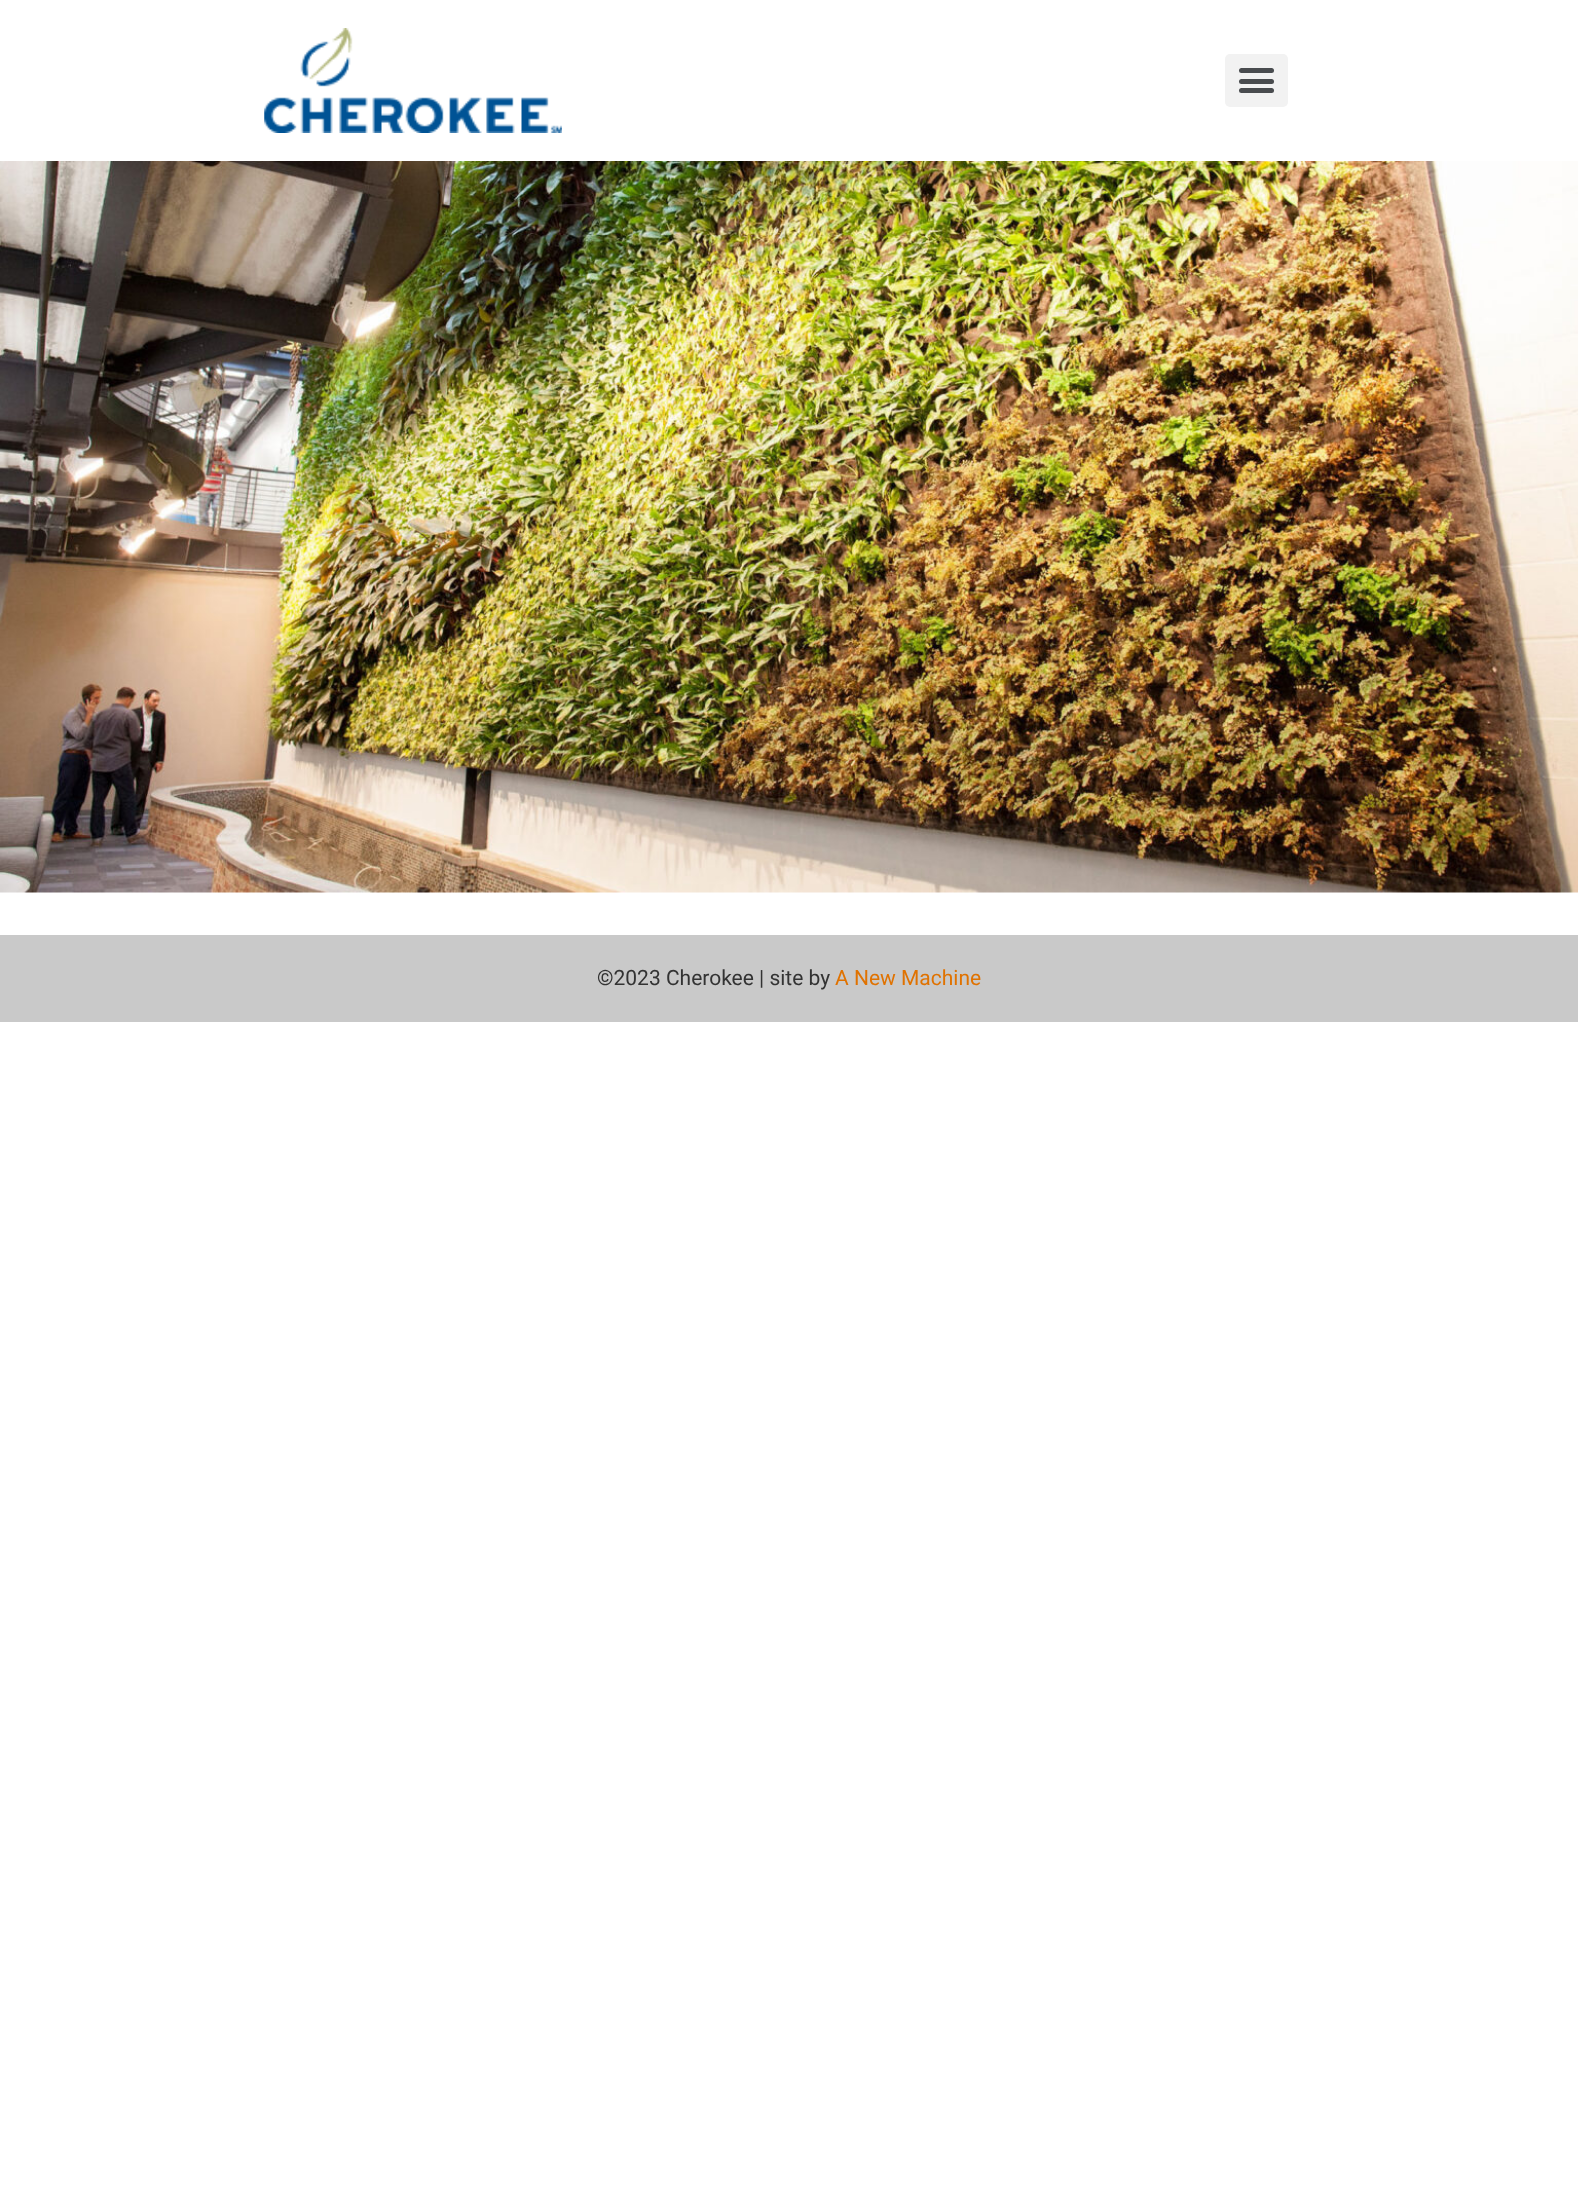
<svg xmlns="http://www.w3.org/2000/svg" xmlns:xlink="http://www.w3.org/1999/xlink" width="1578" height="2199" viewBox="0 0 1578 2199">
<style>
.cls-1{font:21px Roboto;fill:#333333}
.cls-2{font:21px Roboto;fill:#e07200}
</style>
<rect width="100%" height="100%" fill="#ffffff"/>
<image xlink:href="image0.png" x="264" y="28" width="298" height="105"/>
<rect fill="#f2f2f2" x="1225" y="54" width="63" height="53" rx="5"/>
<rect fill="#494c4f" x="1239" y="79" width="35" height="5" rx="2.5"/>
<rect fill="#494c4f" x="1239" y="68" width="35" height="5" rx="2.5"/>
<rect fill="#494c4f" x="1239" y="88" width="35" height="5" rx="2.5"/>
<image xlink:href="image1.png" x="0" y="161" width="1578" height="732"/>
<rect fill="#c9c9c9" x="0" y="935" width="1578" height="87"/>
<text class="cls-1" x="597" y="985">©2023 Cherokee | site by</text>
<text class="cls-2" x="835" y="985">A New Machine</text>
</svg>
